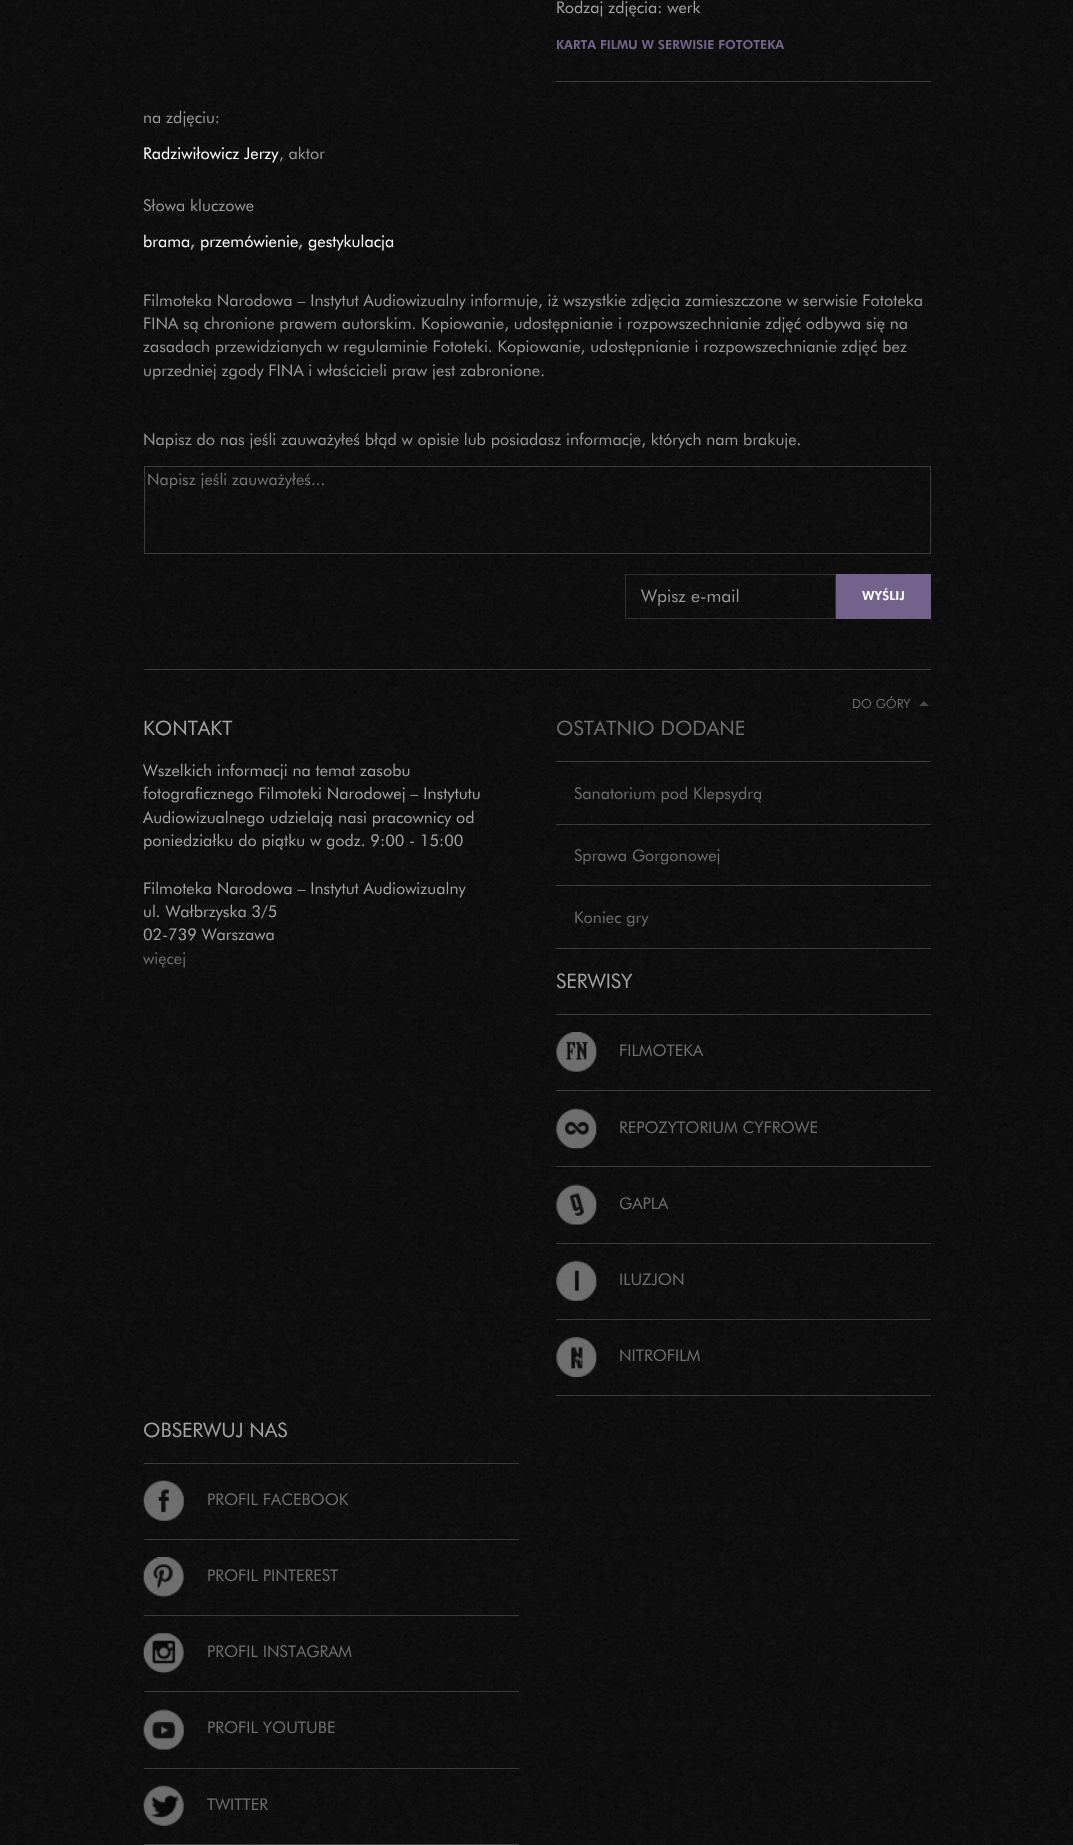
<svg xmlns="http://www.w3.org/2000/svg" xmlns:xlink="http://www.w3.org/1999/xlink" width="1073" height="1845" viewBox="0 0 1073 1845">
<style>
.cls-1{font:16.25px Futura;fill:#a3a3a3}
.cls-2{font:900 12.5px Futura;fill:#73638c}
.cls-3{font:16.25px Futura;fill:#999999}
.cls-4{font:16.25px Futura;fill:#ffffff}
.cls-5{font:900 16.25px Futura;fill:#999999}
.cls-6{font:16.25px Futura;fill:#757575}
.cls-7{font:17.5px Futura;fill:#999999}
.cls-8{font:900 12.5px Futura;fill:#ffffff}
.cls-9{font:12.5px Futura;fill:#6f6f6f}
.cls-10{font:20px Futura;fill:#a3a3a3}
.cls-11{font:16.25px Futura;fill:#6f6f6f}
.cls-12{font:20px Futura;fill:#6f6f6f}
</style>
<rect width="100%" height="100%" fill="#ffffff"/>
<image xlink:href="image0.png" x="0" y="0" width="1073" height="1845"/>
<rect fill="#3c3c3c" x="556" y="81" width="375" height="1"/>
<rect fill="none" stroke="#3c3c3c" x="144.5" y="466.5" width="786" height="87"/>
<rect fill="none" stroke="#303030" x="625.5" y="574.5" width="210" height="44"/>
<rect fill="#73638c" x="836" y="574" width="95" height="45"/>
<rect fill="#3c3c3c" x="144" y="669" width="787" height="1"/>
<path fill="#a3a3a3" fill-opacity="0.4" d="M929 706H919L924 701Z"/>
<rect fill="#3c3c3c" x="556" y="948" width="375" height="1"/>
<rect fill="#3c3c3c" x="556" y="761" width="375" height="1"/>
<rect fill="#3c3c3c" x="556" y="824" width="375" height="1"/>
<rect fill="#3c3c3c" x="556" y="885" width="375" height="1"/>
<rect fill="#3c3c3c" x="556" y="1395" width="375" height="1"/>
<rect fill="#3c3c3c" x="556" y="1014" width="375" height="1"/>
<image xlink:href="image1.png" x="556" y="1032" width="41" height="40"/>
<rect fill="#3c3c3c" x="556" y="1090" width="375" height="1"/>
<image xlink:href="image2.png" x="556" y="1108" width="41" height="41"/>
<rect fill="#3c3c3c" x="556" y="1166" width="375" height="1"/>
<image xlink:href="image3.png" x="556" y="1184" width="41" height="41"/>
<rect fill="#3c3c3c" x="556" y="1243" width="375" height="1"/>
<image xlink:href="image4.png" x="556" y="1260" width="41" height="41"/>
<rect fill="#3c3c3c" x="556" y="1319" width="375" height="1"/>
<image xlink:href="image5.png" x="556" y="1337" width="41" height="40"/>
<rect fill="#3c3c3c" x="144" y="1844" width="375" height="1"/>
<rect fill="#3c3c3c" x="144" y="1463" width="375" height="1"/>
<image xlink:href="image6.png" x="143" y="1480" width="41" height="41"/>
<rect fill="#3c3c3c" x="144" y="1539" width="375" height="1"/>
<image xlink:href="image7.png" x="143" y="1557" width="41" height="40"/>
<rect fill="#3c3c3c" x="144" y="1615" width="375" height="1"/>
<image xlink:href="image8.png" x="143" y="1633" width="41" height="41"/>
<rect fill="#3c3c3c" x="144" y="1691" width="375" height="1"/>
<image xlink:href="image9.png" x="143" y="1709" width="41" height="41"/>
<rect fill="#3c3c3c" x="144" y="1768" width="375" height="1"/>
<image xlink:href="image10.png" x="143" y="1785" width="41" height="41"/>
<text class="cls-1" x="556" y="13">Rodzaj zdjęcia: werk</text>
<text class="cls-2" x="556" y="49">KARTA FILMU W SERWISIE FOTOTEKA</text>
<text class="cls-3" x="143" y="123">na zdjęciu:</text>
<text class="cls-4" x="143" y="159">Radziwiłowicz Jerzy</text>
<text class="cls-3" x="279" y="159">, aktor</text>
<text class="cls-3" x="143" y="211">Słowa kluczowe</text>
<text class="cls-4" x="143" y="247">brama</text>
<text class="cls-5" x="190" y="247">,</text>
<text class="cls-4" x="200" y="247">przemówienie</text>
<text class="cls-5" x="298" y="247">,</text>
<text class="cls-4" x="308" y="247">gestykulacja</text>
<text class="cls-3"><tspan x="143" y="306">Filmoteka Narodowa – Instytut Audiowizualny informuje, iż wszystkie zdjęcia zamieszczone w serwisie Fototeka</tspan><tspan x="143" y="329">FINA są chronione prawem autorskim. Kopiowanie, udostępnianie i rozpowszechnianie zdjęć odbywa się na</tspan><tspan x="143" y="352">zasadach przewidzianych w regulaminie Fototeki. Kopiowanie, udostępnianie i rozpowszechnianie zdjęć bez</tspan><tspan x="143" y="376">uprzedniej zgody FINA i właścicieli praw jest zabronione.</tspan></text>
<text class="cls-3" x="143" y="445">Napisz do nas jeśli zauważyłeś błąd w opisie lub posiadasz informacje, których nam brakuje.</text>
<text class="cls-6" x="147" y="485">Napisz jeśli zauważyłeś...</text>
<text class="cls-7" x="641" y="602">Wpisz e-mail</text>
<text class="cls-8" x="862" y="600">WYŚLIJ</text>
<text class="cls-9" x="852" y="708">DO GÓRY</text>
<text class="cls-10" x="143" y="735">KONTAKT</text>
<text class="cls-1"><tspan x="143" y="776">Wszelkich informacji na temat zasobu</tspan><tspan x="143" y="799">fotograficznego Filmoteki Narodowej – Instytutu</tspan><tspan x="143" y="823">Audiowizualnego udzielają nasi pracownicy od</tspan><tspan x="143" y="846">poniedziałku do piątku w godz. 9:00 - 15:00</tspan></text>
<text class="cls-1"><tspan x="143" y="894">Filmoteka Narodowa – Instytut Audiowizualny</tspan><tspan x="143" y="917">ul. Wałbrzyska 3/5</tspan><tspan x="143" y="940">02-739 Warszawa</tspan></text>
<text class="cls-11" x="143" y="964">więcej</text>
<text class="cls-12" x="556" y="735">OSTATNIO DODANE</text>
<text class="cls-11" x="574" y="799">Sanatorium pod Klepsydrą</text>
<text class="cls-11" x="574" y="861">Sprawa Gorgonowej</text>
<text class="cls-11" x="574" y="923">Koniec gry</text>
<text class="cls-10" x="556" y="988">SERWISY</text>
<text class="cls-11" x="619" y="1056">FILMOTEKA</text>
<text class="cls-11" x="619" y="1133">REPOZYTORIUM CYFROWE</text>
<text class="cls-11" x="619" y="1209">GAPLA</text>
<text class="cls-11" x="619" y="1285">ILUZJON</text>
<text class="cls-11" x="619" y="1361">NITROFILM</text>
<text class="cls-10" x="143" y="1437">OBSERWUJ NAS</text>
<text class="cls-11" x="207" y="1505">PROFIL FACEBOOK</text>
<text class="cls-11" x="207" y="1581">PROFIL PINTEREST</text>
<text class="cls-11" x="207" y="1657">PROFIL INSTAGRAM</text>
<text class="cls-11" x="207" y="1733">PROFIL YOUTUBE</text>
<text class="cls-11" x="207" y="1810">TWITTER</text>
</svg>
